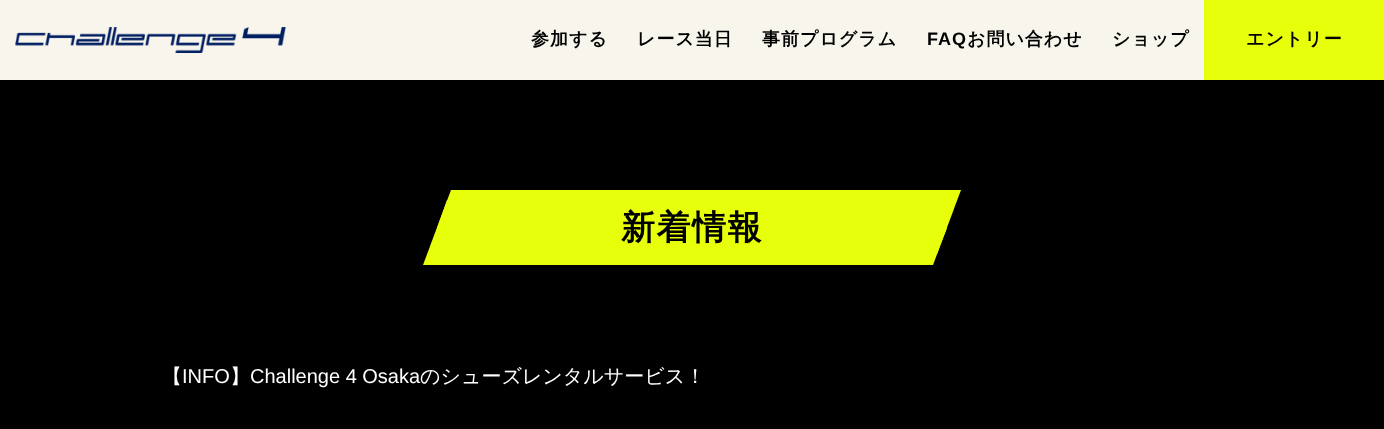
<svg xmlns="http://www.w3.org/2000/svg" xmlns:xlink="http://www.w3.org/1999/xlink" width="1384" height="429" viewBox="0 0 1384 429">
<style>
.cls-1{font:bold 18px WenQuanYi Zen Hei;letter-spacing:1px;fill:#000000}
.cls-2{font:bold 18px Liberation Sans;letter-spacing:1px;fill:#000000}
.cls-3{font:bold 34px WenQuanYi Zen Hei;letter-spacing:1.5px;fill:#000000}
.cls-4{font:500 20px WenQuanYi Zen Hei;fill:#ffffff}
.cls-5{font:20px Liberation Sans;fill:#ffffff}
</style>
<rect width="100%" height="100%" fill="#000000"/>
<rect fill="#f7f5ec" x="0" y="0" width="1204" height="80"/>
<image xlink:href="image0.png" x="15" y="27" width="271" height="26"/>
<rect fill="#e8ff0b" x="1204" y="0" width="180" height="80"/>
<path fill="#e8ff0b" d="M451 190H961L933 265H423Z"/>
<path fill="#e8ff0b" d="M437 228L447 200H947V228L937 254H437Z"/>
<text class="cls-1" x="531" y="45">参加する</text>
<text class="cls-1" x="637" y="45">レース当日</text>
<text class="cls-1" x="762" y="45">事前プログラム</text>
<text class="cls-2" x="927" y="45">FAQ</text>
<text class="cls-1" x="967" y="45">お問い合わせ</text>
<text class="cls-1" x="1112" y="45">ショップ</text>
<text class="cls-1" x="1246" y="45">エントリー</text>
<text class="cls-3" x="621" y="239">新着情報</text>
<text class="cls-4" x="162" y="383">【</text>
<text class="cls-5" x="182" y="383">INFO</text>
<text class="cls-4" x="230" y="383">】</text>
<text class="cls-5" x="250" y="383">Challenge 4 Osaka</text>
<text class="cls-4" x="420" y="383">のシューズレンタルサービス！</text>
</svg>
